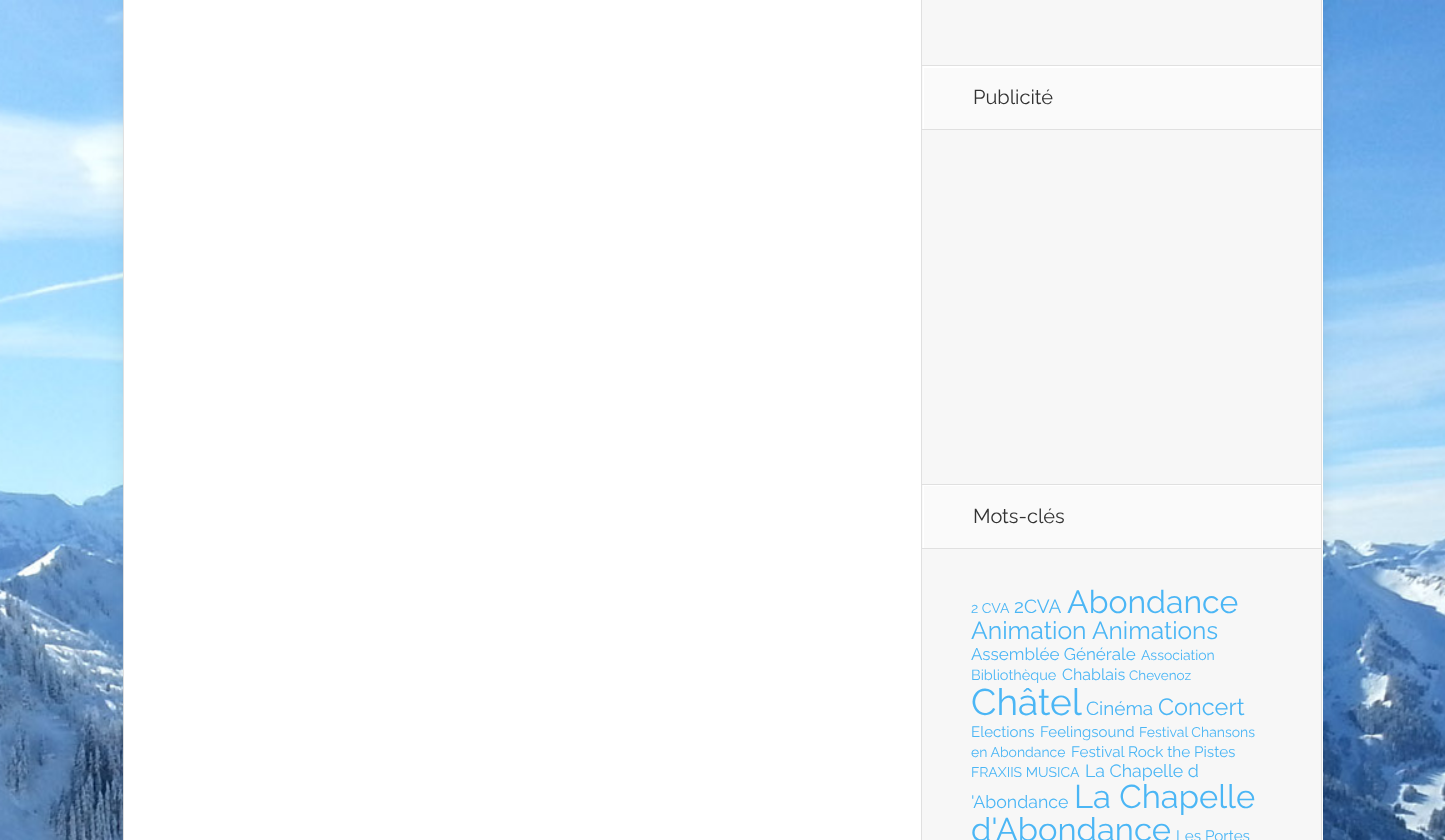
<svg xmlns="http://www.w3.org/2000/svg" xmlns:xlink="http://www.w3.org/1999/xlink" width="1445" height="840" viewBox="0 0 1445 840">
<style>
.cls-1{font:20px Raleway;fill:#333333}
.cls-2{font:14px Raleway;fill:#4bb6f5}
.cls-3{font:19px Raleway;fill:#4bb6f5}
.cls-4{font:32px Raleway;fill:#4bb6f5}
.cls-5{font:24.75px Raleway;fill:#4bb6f5}
.cls-6{font:24.5px Raleway;fill:#4bb6f5}
.cls-7{font:17px Raleway;fill:#4bb6f5}
.cls-8{font:14.5px Raleway;fill:#4bb6f5}
.cls-9{font:16px Raleway;fill:#4bb6f5}
.cls-10{font:13.5px Raleway;fill:#4bb6f5}
.cls-11{font:37px Raleway;fill:#4bb6f5}
.cls-12{font:23.5px Raleway;fill:#4bb6f5}
.cls-13{font:15px Raleway;fill:#4bb6f5}
.cls-14{font:15.25px Raleway;fill:#4bb6f5}
.cls-15{font:17.75px Raleway;fill:#4bb6f5}
.cls-16{font:32.75px Raleway;fill:#4bb6f5}
</style>
<defs>
<clipPath id="clip1"><rect x="923" y="66" width="398" height="63"/></clipPath>
<clipPath id="clip2"><rect x="923" y="485" width="398" height="63"/></clipPath>
</defs>
<rect width="100%" height="100%" fill="#ffffff"/>
<image xlink:href="image0.png" x="0" y="0" width="1445" height="840"/>
<rect fill="#000000" fill-opacity="0.07" filter="blur(9.5px)" x="123" y="-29" width="1200" height="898"/>
<rect fill="#ffffff" x="124" y="0" width="1199" height="840"/>
<rect fill="#e0e0e0" x="1321" y="0" width="1" height="840"/>
<rect fill="#e0e0e0" x="123" y="0" width="1" height="840"/>
<rect fill="#e0e0e0" x="921" y="0" width="1" height="840"/>
<rect fill="#f7f7f7" x="922" y="0" width="399" height="840"/>
<rect fill="#fafafa" x="922" y="66" width="399" height="63"/>
<g clip-path="url(#clip1)">
<path fill="#ffffff" fill-rule="evenodd" d="M799-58H1445V252H799ZM924 68H1322V130H924Z"/>
</g>
<rect fill="#e0e0e0" x="921" y="65" width="400" height="1"/>
<rect fill="#e0e0e0" x="921" y="129" width="400" height="1"/>
<rect fill="#fafafa" x="922" y="485" width="399" height="63"/>
<g clip-path="url(#clip2)">
<path fill="#ffffff" fill-rule="evenodd" d="M799 361H1445V671H799ZM924 486H1322V549H924Z"/>
</g>
<rect fill="#e0e0e0" x="921" y="484" width="400" height="1"/>
<rect fill="#e0e0e0" x="921" y="548" width="400" height="1"/>
<text class="cls-1" x="973" y="104">Publicité</text>
<text class="cls-1" x="973" y="523">Mots-clés</text>
<text class="cls-2" x="971" y="613">2 CVA</text>
<text class="cls-3" x="1014" y="613">2CVA</text>
<text class="cls-4" x="1067" y="613">Abondance</text>
<text class="cls-5" x="971" y="639">Animation</text>
<text class="cls-6" x="1092" y="639">Animations</text>
<text class="cls-7" x="971" y="660">Assemblée Générale</text>
<text class="cls-2" x="1141" y="660">Association</text>
<text class="cls-8" x="971" y="680">Bibliothèque</text>
<text class="cls-9" x="1062" y="680">Chablais</text>
<text class="cls-10" x="1129" y="680">Chevenoz</text>
<text class="cls-11" x="971" y="715">Châtel</text>
<text class="cls-3" x="1086" y="715">Cinéma</text>
<text class="cls-12" x="1158" y="715">Concert</text>
<text class="cls-13" x="971" y="737">Elections</text>
<text class="cls-13" x="1040" y="737">Feelingsound</text>
<text class="cls-2" x="1139" y="737">Festival Chansons</text>
<text class="cls-2" x="971" y="757">en Abondance</text>
<text class="cls-14" x="1071" y="757">Festival Rock the Pistes</text>
<text class="cls-2" x="971" y="777">FRAXIIS MUSICA</text>
<text class="cls-15" x="1085" y="777">La Chapelle d</text>
<text class="cls-15" x="971" y="808">'Abondance</text>
<text class="cls-16" x="1074" y="808">La Chapelle</text>
<text class="cls-16" x="971" y="841">d'Abondance</text>
<text class="cls-14" x="1176" y="841">Les Portes</text>
</svg>
